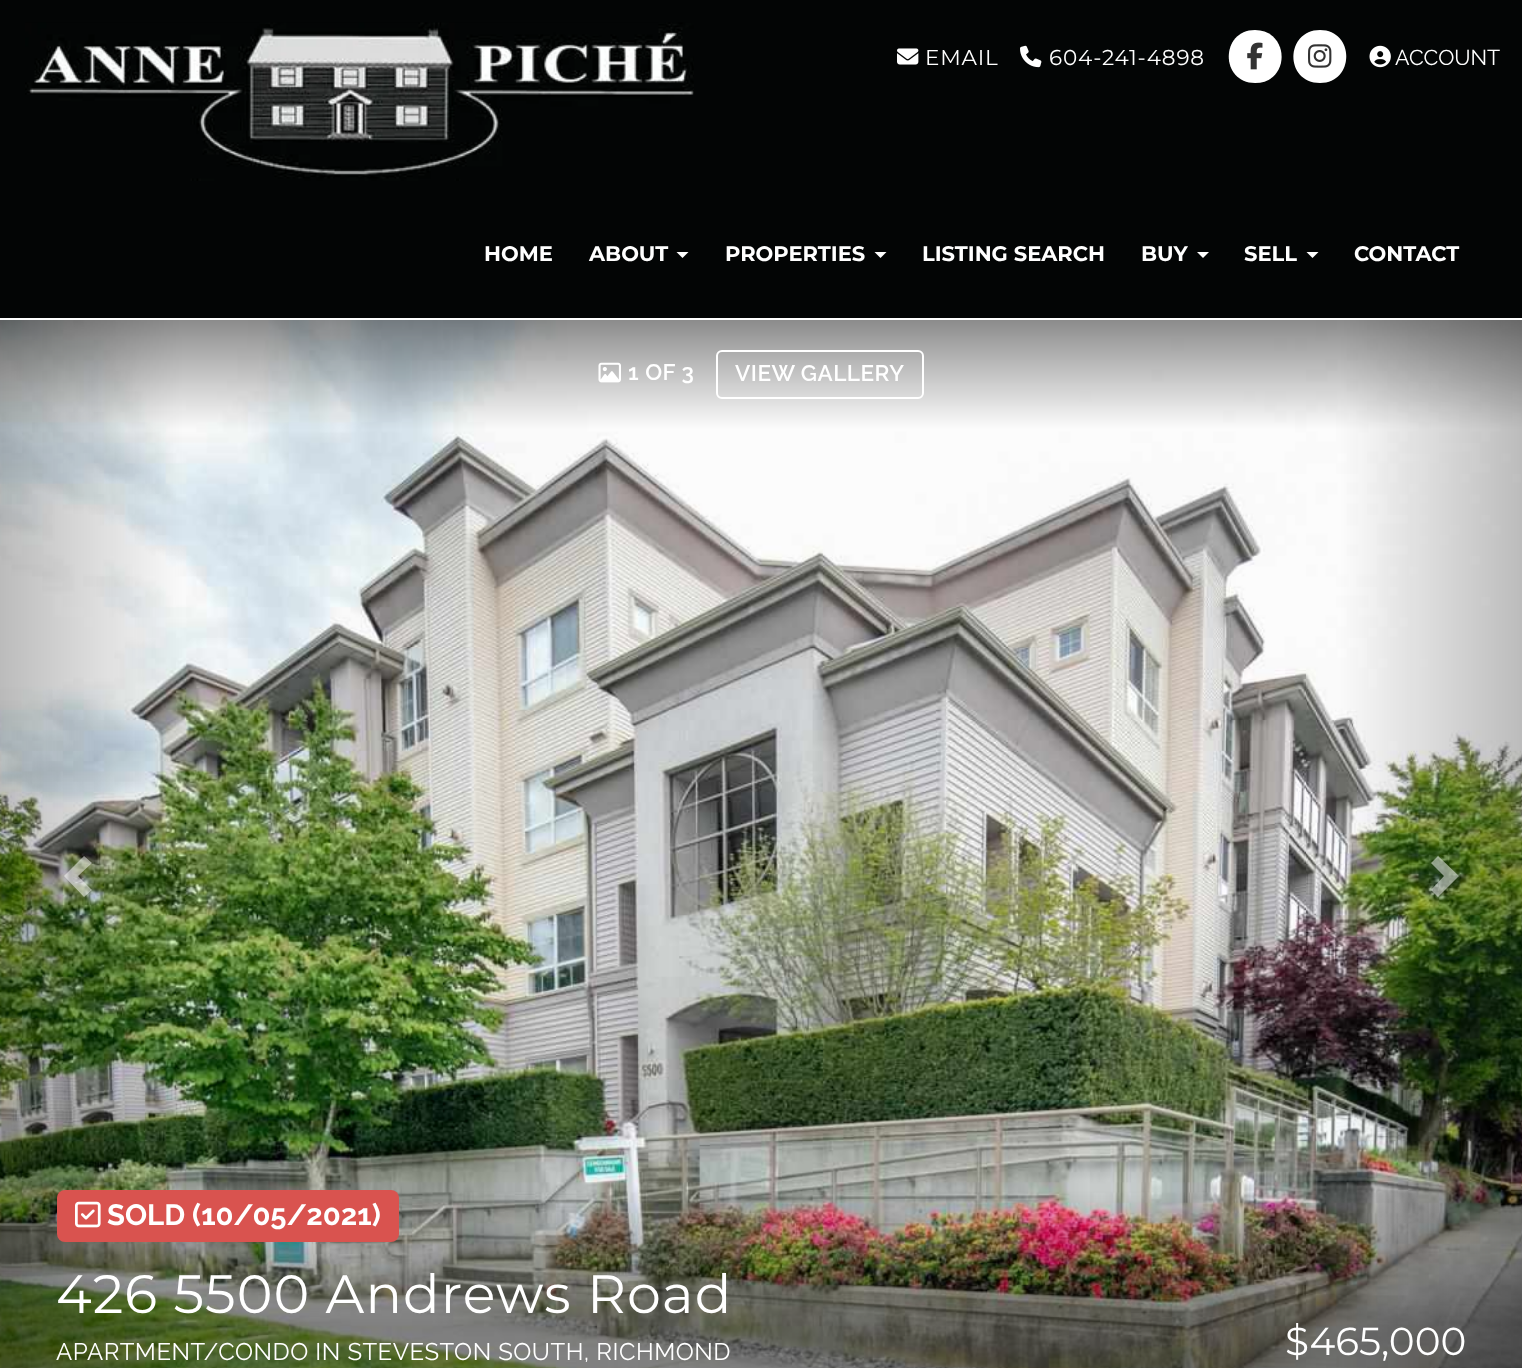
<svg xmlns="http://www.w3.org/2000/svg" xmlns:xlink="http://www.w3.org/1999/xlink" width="1522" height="1368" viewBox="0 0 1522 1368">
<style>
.cls-1{font:21.5px Montserrat;letter-spacing:0.8px;fill:#ffffff}
.cls-2{font:21.5px Raleway;fill:#ffffff}
.cls-3{font:bold 21px Montserrat;fill:#ffffff}
.cls-4{font:600 22.5px Raleway;letter-spacing:0.5px;fill:#ffffff}
.cls-5{font:bold 29.25px Raleway;fill:#ffffff}
.cls-6{font:54px Montserrat;letter-spacing:1.1px;fill:#ffffff}
.cls-7{font:24px Raleway;letter-spacing:0.5px;fill:#ffffff}
.cls-8{font:39px Montserrat;fill:#ffffff}
</style>
<rect width="100%" height="100%" fill="#030505"/>
<image xlink:href="image0.png" x="25" y="22" width="669" height="159"/>
<image xlink:href="image1.png" x="897" y="48" width="22" height="17"/>
<image xlink:href="image2.png" x="1020" y="45" width="22" height="23"/>
<path fill="#ffffff" d="M1255 83C1291 83 1290 30 1255 30C1220 30 1220 83 1255 83Z"/>
<image xlink:href="image3.png" x="1247" y="42" width="16" height="28"/>
<path fill="#ffffff" d="M1320 83C1355 83 1355 30 1320 30C1285 30 1284 83 1320 83Z"/>
<image xlink:href="image4.png" x="1308" y="44" width="24" height="24"/>
<image xlink:href="image5.png" x="1369" y="45" width="22" height="23"/>
<path fill="#ffffff" d="M676.5 252H688.5L682.5 258Z"/>
<path fill="#ffffff" d="M874.5 252H886.5L880.5 258Z"/>
<path fill="#ffffff" d="M1197 252H1209L1203 258Z"/>
<path fill="#ffffff" d="M1306.5 252H1318.5L1312.5 258Z"/>
<rect fill="#ffffff" x="0" y="318" width="1522" height="2"/>
<image xlink:href="image6.png" x="0" y="320" width="1522" height="1048"/>
<image xlink:href="image7.png" x="598" y="362" width="23" height="21"/>
<rect fill="none" stroke="#ffffff" stroke-width="2" x="717" y="351" width="206" height="47" rx="5"/>
<path fill="#ffffff" fill-opacity="0.5" d="M92 863L78 876L92 890L84 897L64 876L84 856Z"/>
<path fill="#ffffff" fill-opacity="0.5" d="M1459 876L1438 897L1431 890L1444 876L1431 863L1438 856Z"/>
<rect fill="#d9534f" x="57" y="1190" width="342" height="52" rx="8"/>
<image xlink:href="image8.png" x="75" y="1201" width="26" height="27"/>
<text class="cls-1" x="925" y="65">EMAIL</text>
<text class="cls-1" x="1049" y="65">604-241-4898</text>
<text class="cls-2" x="1395" y="65">ACCOUNT</text>
<text class="cls-3" x="484" y="261">HOME</text>
<text class="cls-3" x="589" y="261">ABOUT</text>
<text class="cls-3" x="725" y="261">PROPERTIES</text>
<text class="cls-3" x="922" y="261">LISTING SEARCH</text>
<text class="cls-3" x="1141" y="261">BUY</text>
<text class="cls-3" x="1244" y="261">SELL</text>
<text class="cls-3" x="1354" y="261">CONTACT</text>
<text class="cls-4" x="628" y="380">1 OF 3</text>
<text class="cls-4" x="735" y="381">VIEW GALLERY</text>
<text class="cls-5" x="107" y="1225">SOLD (10/05/2021)</text>
<text class="cls-6" x="56" y="1313">426 5500 Andrews Road</text>
<text class="cls-7" x="56" y="1360">APARTMENT/CONDO IN STEVESTON SOUTH, RICHMOND</text>
<text class="cls-8" x="1285" y="1355">$465,000</text>
</svg>
